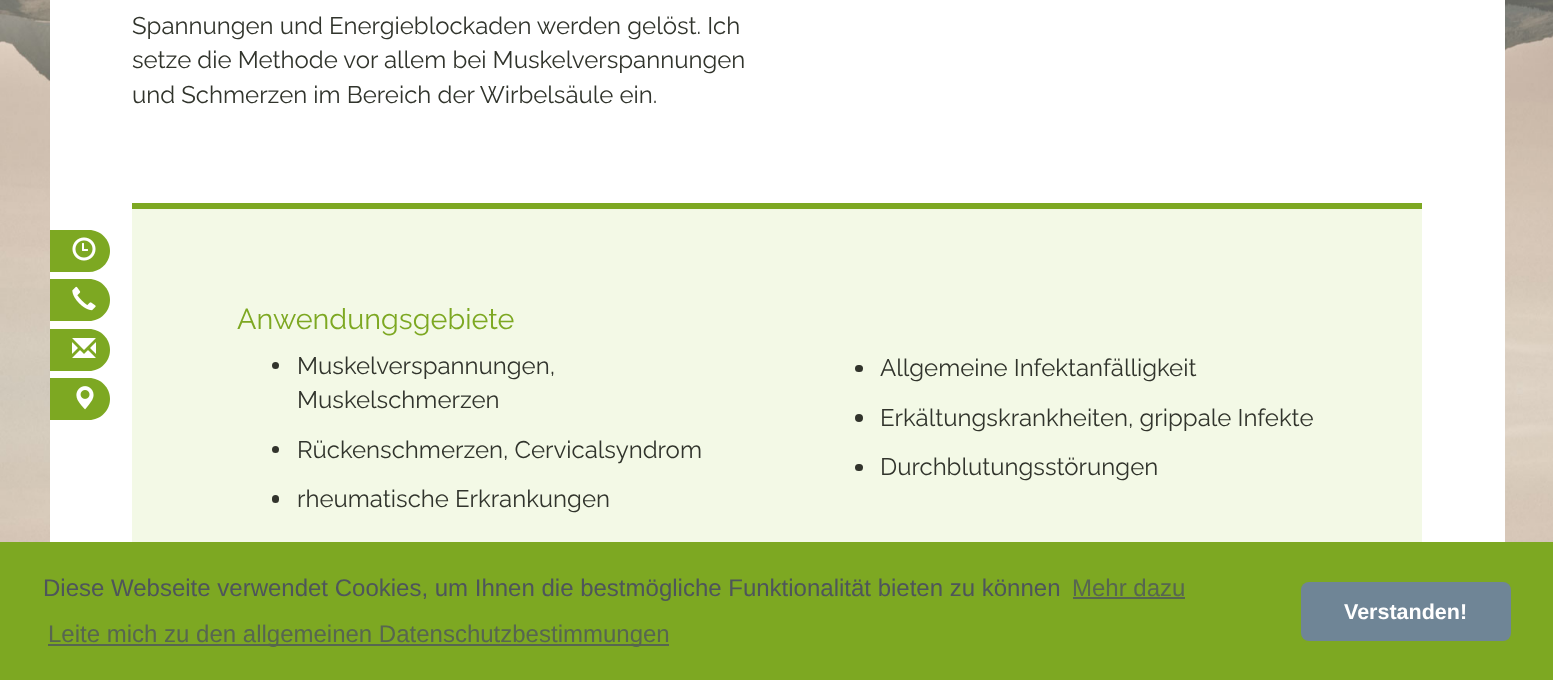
<svg xmlns="http://www.w3.org/2000/svg" xmlns:xlink="http://www.w3.org/1999/xlink" width="1553" height="680" viewBox="0 0 1553 680">
<style>
.cls-1{font:24px Raleway;fill:#31342c}
.cls-2{font:28.75px Raleway;fill:#7da822}
.cls-3{font:24px Liberation Sans;fill:#4e555b}
.cls-4{font:24px Liberation Sans;fill:#576650}
.cls-5{font:bold 21.5px Liberation Sans;fill:#ffffff}
</style>
<rect width="100%" height="100%" fill="#ffffff"/>
<image xlink:href="image0.png" x="0" y="0" width="1553" height="542"/>
<rect fill="#ffffff" x="50" y="0" width="1455" height="542"/>
<path fill="#7da822" d="M50 230H89C100.5 230 110 239.5 110 251C110 262.5 100.5 272 89 272H50Z"/>
<image xlink:href="image1.png" x="72" y="237" width="24" height="24"/>
<path fill="#7da822" d="M50 279H89C100.5 279 110 288.5 110 300C110 311.5 100.5 321 89 321H50Z"/>
<image xlink:href="image2.png" x="72" y="286" width="24" height="25"/>
<path fill="#7da822" d="M50 329H89C100.5 329 110 338.5 110 350C110 361.5 100.5 371 89 371H50Z"/>
<image xlink:href="image3.png" x="72" y="338" width="24" height="20"/>
<path fill="#7da822" d="M50 378H89C100.5 378 110 387.5 110 399C110 410.5 100.5 420 89 420H50Z"/>
<image xlink:href="image4.png" x="76" y="386" width="18" height="24"/>
<rect fill="#f3f9e6" x="132" y="209" width="1290" height="333"/>
<rect fill="#7da822" x="132" y="203" width="1290" height="6"/>
<circle fill="#31342c" cx="275.5" cy="365.5" r="3.5"/>
<circle fill="#31342c" cx="275.5" cy="449.5" r="3.5"/>
<rect fill="#31342c" x="272" y="495" width="7" height="8" rx="3.5"/>
<rect fill="#31342c" x="855" y="365" width="8" height="7" rx="3.5"/>
<circle fill="#31342c" cx="859" cy="418" r="4"/>
<rect fill="#31342c" x="855" y="464" width="8" height="7" rx="3.5"/>
<rect fill="#7da822" x="0" y="542" width="1553" height="138"/>
<rect fill="#576650" x="1073" y="597" width="112" height="2"/>
<rect fill="#576650" x="48" y="644" width="621" height="2"/>
<rect fill="#6f8596" x="1301" y="582" width="210" height="59" rx="8"/>
<text class="cls-1"><tspan x="132" y="34">Spannungen und Energieblockaden werden gelöst. Ich</tspan><tspan x="132" y="68">setze die Methode vor allem bei Muskelverspannungen</tspan><tspan x="132" y="103">und Schmerzen im Bereich der Wirbelsäule ein.</tspan></text>
<text class="cls-2" x="237" y="329">Anwendungsgebiete</text>
<text class="cls-1"><tspan x="297" y="374">Muskelverspannungen,</tspan><tspan x="297" y="408">Muskelschmerzen</tspan></text>
<text class="cls-1" x="297" y="458">Rückenschmerzen, Cervicalsyndrom</text>
<text class="cls-1" x="297" y="507">rheumatische Erkrankungen</text>
<text class="cls-1" x="880" y="376">Allgemeine Infektanfälligkeit</text>
<text class="cls-1" x="880" y="426">Erkältungskrankheiten, grippale Infekte</text>
<text class="cls-1" x="880" y="475">Durchblutungsstörungen</text>
<text class="cls-3" x="43" y="596">Diese Webseite verwendet Cookies, um Ihnen die bestmögliche Funktionalität bieten zu können</text>
<text class="cls-4" x="1072" y="596">Mehr dazu</text>
<text class="cls-4" x="48" y="642">Leite mich zu den allgemeinen Datenschutzbestimmungen</text>
<text class="cls-5" x="1344" y="619">Verstanden!</text>
</svg>
